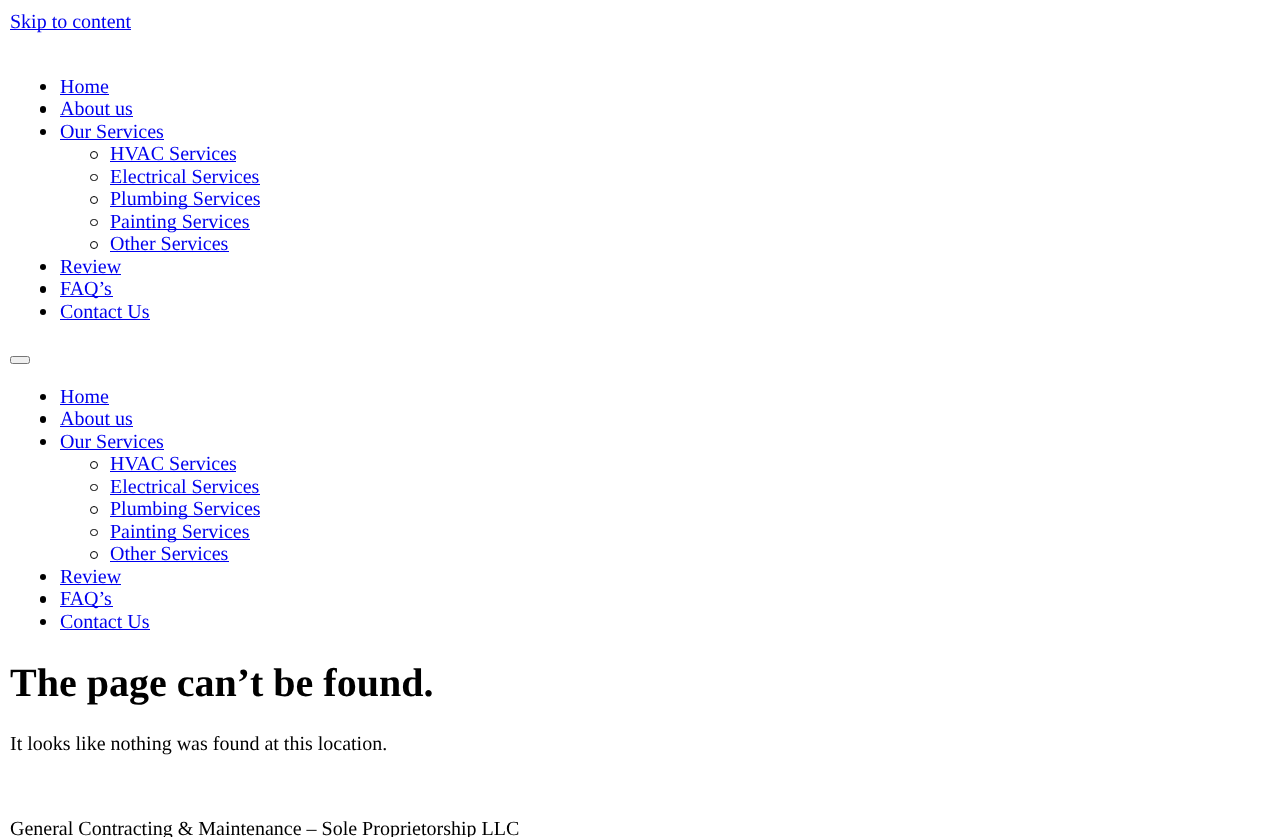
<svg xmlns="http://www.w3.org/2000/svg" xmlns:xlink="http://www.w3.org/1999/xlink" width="1276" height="837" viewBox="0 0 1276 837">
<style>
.cls-1{font:20px Liberation Serif;fill:#0000ee}
.cls-2{font:bold 40px Liberation Serif;fill:#000000}
.cls-3{font:20px Liberation Serif;fill:#000000}
</style>
<rect width="100%" height="100%" fill="#ffffff"/>
<rect fill="#0000ee" x="10" y="29" width="121" height="1"/>
<circle fill="#000000" cx="43" cy="87" r="3"/>
<rect fill="#0000ee" x="60" y="94" width="49" height="1"/>
<rect fill="#000000" x="40" y="106" width="6" height="7" rx="3"/>
<rect fill="#0000ee" x="60" y="116" width="73" height="1"/>
<circle fill="#000000" cx="43" cy="132" r="3"/>
<rect fill="#0000ee" x="60" y="139" width="104" height="1"/>
<circle fill="none" stroke="#000000" cx="94" cy="155" r="3.5"/>
<rect fill="#0000ee" x="110" y="161" width="126" height="1"/>
<rect fill="none" stroke="#000000" x="90.5" y="174.5" width="7" height="6" rx="3"/>
<rect fill="#0000ee" x="110" y="184" width="150" height="1"/>
<circle fill="none" stroke="#000000" cx="94" cy="200" r="3.5"/>
<rect fill="#0000ee" x="110" y="206" width="150" height="1"/>
<rect fill="none" stroke="#000000" x="90.5" y="219.5" width="7" height="6" rx="3"/>
<rect fill="#0000ee" x="110" y="229" width="140" height="1"/>
<circle fill="none" stroke="#000000" cx="94" cy="245" r="3.5"/>
<rect fill="#0000ee" x="110" y="251" width="119" height="1"/>
<circle fill="#000000" cx="43" cy="267" r="3"/>
<rect fill="#0000ee" x="60" y="274" width="61" height="1"/>
<rect fill="#000000" x="40" y="286" width="6" height="7" rx="3"/>
<rect fill="#0000ee" x="60" y="296" width="53" height="1"/>
<circle fill="#000000" cx="43" cy="312" r="3"/>
<rect fill="#0000ee" x="60" y="319" width="90" height="1"/>
<rect fill="#efefef" stroke="#767676" x="10.5" y="356.5" width="19" height="7" rx="2"/>
<circle fill="#000000" cx="43" cy="397" r="3"/>
<rect fill="#0000ee" x="60" y="404" width="49" height="1"/>
<rect fill="#000000" x="40" y="416" width="6" height="7" rx="3"/>
<rect fill="#0000ee" x="60" y="426" width="73" height="1"/>
<circle fill="#000000" cx="43" cy="442" r="3"/>
<rect fill="#0000ee" x="60" y="449" width="104" height="1"/>
<circle fill="none" stroke="#000000" cx="94" cy="465" r="3.5"/>
<rect fill="#0000ee" x="110" y="471" width="126" height="1"/>
<rect fill="none" stroke="#000000" x="90.5" y="484.5" width="7" height="6" rx="3"/>
<rect fill="#0000ee" x="110" y="494" width="150" height="1"/>
<circle fill="none" stroke="#000000" cx="94" cy="510" r="3.5"/>
<rect fill="#0000ee" x="110" y="516" width="150" height="1"/>
<rect fill="none" stroke="#000000" x="90.5" y="529.5" width="7" height="6" rx="3"/>
<rect fill="#0000ee" x="110" y="539" width="140" height="1"/>
<circle fill="none" stroke="#000000" cx="94" cy="555" r="3.5"/>
<rect fill="#0000ee" x="110" y="561" width="119" height="1"/>
<circle fill="#000000" cx="43" cy="577" r="3"/>
<rect fill="#0000ee" x="60" y="584" width="61" height="1"/>
<rect fill="#000000" x="40" y="596" width="6" height="7" rx="3"/>
<rect fill="#0000ee" x="60" y="606" width="53" height="1"/>
<circle fill="#000000" cx="43" cy="622" r="3"/>
<rect fill="#0000ee" x="60" y="629" width="90" height="1"/>
<text class="cls-1" x="10" y="28">Skip to content</text>
<text class="cls-1"><tspan x="60" y="93">Home</tspan><tspan x="60" y="115">About us</tspan><tspan x="60" y="138">Our Services</tspan></text>
<text class="cls-1"><tspan x="110" y="160">HVAC Services</tspan><tspan x="110" y="183">Electrical Services</tspan><tspan x="110" y="205">Plumbing Services</tspan><tspan x="110" y="228">Painting Services</tspan><tspan x="110" y="250">Other Services</tspan></text>
<text class="cls-1"><tspan x="60" y="273">Review</tspan><tspan x="60" y="295">FAQ’s</tspan><tspan x="60" y="318">Contact Us</tspan></text>
<text class="cls-1"><tspan x="60" y="403">Home</tspan><tspan x="60" y="425">About us</tspan><tspan x="60" y="448">Our Services</tspan></text>
<text class="cls-1"><tspan x="110" y="470">HVAC Services</tspan><tspan x="110" y="493">Electrical Services</tspan><tspan x="110" y="515">Plumbing Services</tspan><tspan x="110" y="538">Painting Services</tspan><tspan x="110" y="560">Other Services</tspan></text>
<text class="cls-1"><tspan x="60" y="583">Review</tspan><tspan x="60" y="605">FAQ’s</tspan><tspan x="60" y="628">Contact Us</tspan></text>
<text class="cls-2" x="10" y="696">The page can’t be found.</text>
<text class="cls-3" x="10" y="750">It looks like nothing was found at this location.</text>
<text class="cls-3" x="10" y="835">General Contracting &amp; Maintenance – Sole Proprietorship LLC</text>
</svg>
